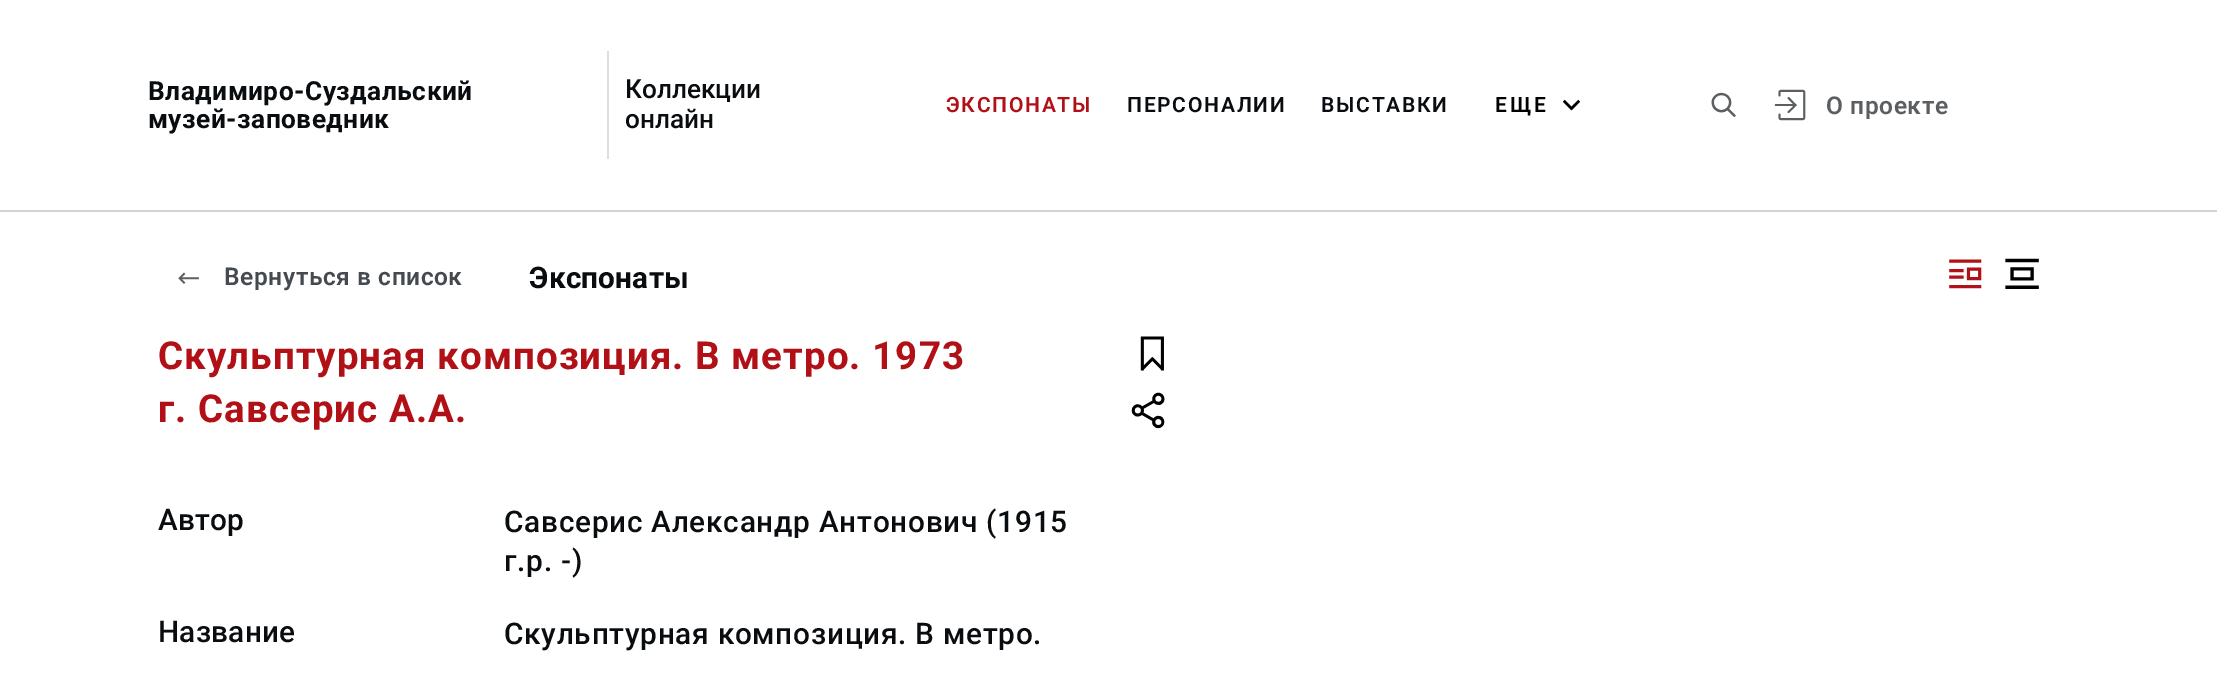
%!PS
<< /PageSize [2217 676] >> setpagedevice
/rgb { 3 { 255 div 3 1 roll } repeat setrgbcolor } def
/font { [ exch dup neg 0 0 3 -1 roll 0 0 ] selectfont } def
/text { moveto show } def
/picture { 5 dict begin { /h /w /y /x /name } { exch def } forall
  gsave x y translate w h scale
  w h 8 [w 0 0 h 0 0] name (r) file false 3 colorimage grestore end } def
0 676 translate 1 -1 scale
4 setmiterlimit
255 255 255 rgb
0 0 2217 676 rectfill
211 211 211 rgb
0 210 2217 2 rectfill
222 222 222 rgb
607 51 2 108 rectfill
(img_01.rgb) 1562 99 19 12 picture
(img_02.rgb) 1711 92 25 26 picture
(img_03.rgb) 1774 89 32 32 picture
(img_04.rgb) 178 272 21 12 picture
(img_05.rgb) 1949 259 33 30 picture
(img_06.rgb) 2005 258 34 31 picture
(img_07.rgb) 1140 336 24 35 picture
(img_08.rgb) 1131 392 34 37 picture
/Roboto-Bold 26.25 font
10 13 16 rgb
148 100 moveto 0.5 0 (Владимиро-Суздальский) ashow
148 128 moveto 0.5 0 (музей-заповедник) ashow
/Roboto-Medium 26.25 font
(Коллекции) 625 98 text
(онлайн) 625 128 text
/Roboto-SemiBold 21 font
177 16 22 rgb
946 112 moveto 1.75 0 (ЭКСПОНАТЫ) ashow
10 13 16 rgb
1127 112 moveto 1.75 0 (ПЕРСОНАЛИИ) ashow
1321 112 moveto 1.75 0 (ВЫСТАВКИ) ashow
0 0 0 rgb
1495 112 moveto 3 0 (ЕЩЕ) ashow
/Roboto-SemiBold 24.5 font
92 95 98 rgb
1826 114 moveto 0.6 0 (О проекте) ashow
68 74 80 rgb
224 285 moveto 0.6 0 (Вернуться в список) ashow
/Roboto-Bold 29.75 font
10 13 16 rgb
529 288 moveto 0.25 0 (Экспонаты) ashow
/Roboto-Bold 38.5 font
177 16 22 rgb
158 369 moveto 1.05 0 (Скульптурная композиция. В метро. 1973) ashow
158 422 moveto 1.05 0 (г. Савсерис А.А.) ashow
/Roboto-Medium 29.75 font
10 13 16 rgb
158 530 moveto 0.25 0 (Автор) ashow
504 532 moveto 0.75 0 (Савсерис Александр Антонович \(1915) ashow
504 571 moveto 0.75 0 (г.р. -\)) ashow
158 642 moveto 0.25 0 (Название) ashow
504 644 moveto 0.75 0 (Скульптурная композиция. В метро.) ashow
showpage
